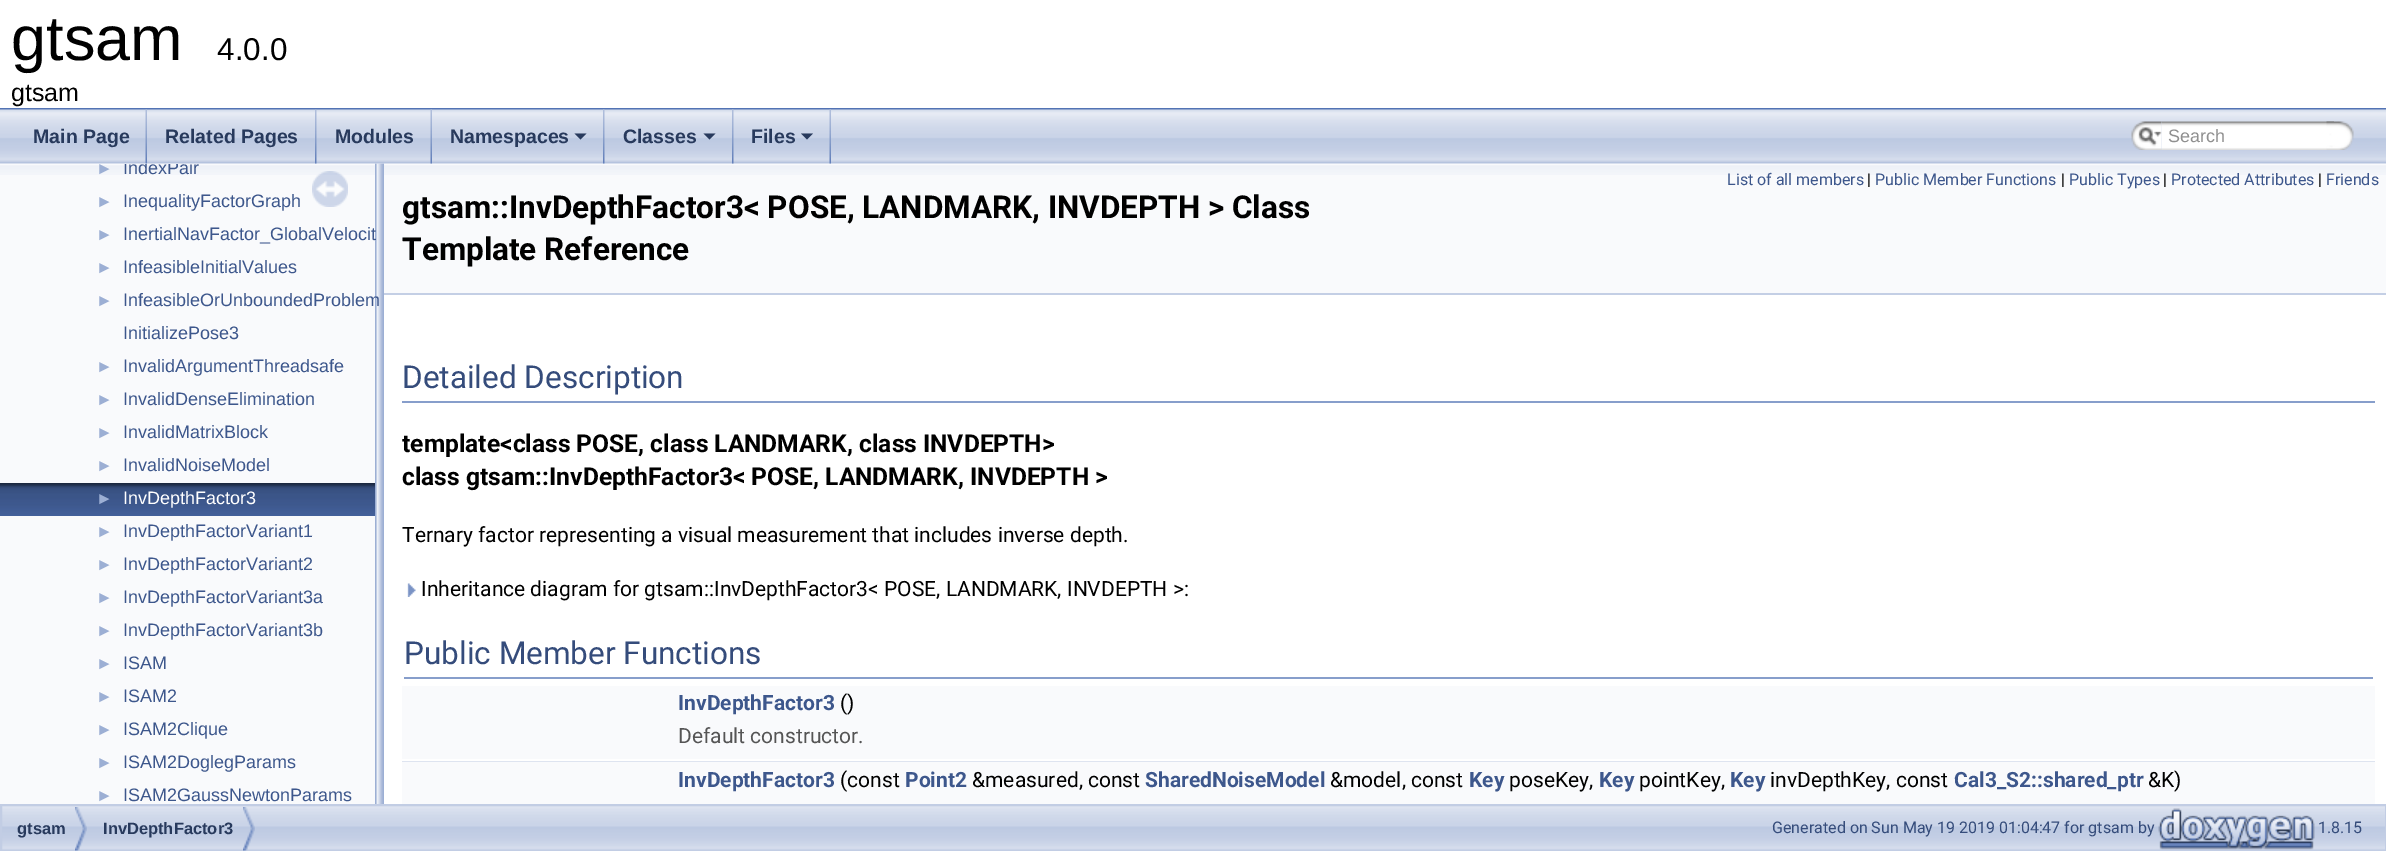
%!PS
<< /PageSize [2386 851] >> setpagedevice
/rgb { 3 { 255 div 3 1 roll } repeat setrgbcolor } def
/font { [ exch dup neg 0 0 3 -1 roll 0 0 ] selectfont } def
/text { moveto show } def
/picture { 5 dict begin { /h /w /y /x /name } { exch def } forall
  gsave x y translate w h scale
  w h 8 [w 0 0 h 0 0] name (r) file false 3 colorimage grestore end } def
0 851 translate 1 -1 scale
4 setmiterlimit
255 255 255 rgb
0 0 2386 851 rectfill
83 115 180 rgb
0 108 2386 2 rectfill
(img_12.rgb) 375 163 9 641 picture
(img_01.rgb) 0 109 2386 55 picture
(img_02.rgb) 145 109 2 55 picture
(img_03.rgb) 315 109 2 55 picture
(img_02.rgb) 430 109 2 55 picture
(img_04.rgb) 603 109 2 55 picture
40 58 93 rgb
574.5 133.5 moveto 12 0 rlineto -6 6 rlineto closepath fill
(img_04.rgb) 732 109 2 55 picture
703.5 133.5 moveto 12 0 rlineto -6 6 rlineto closepath fill
(img_02.rgb) 829 109 2 55 picture
801 133.5 moveto 12 0 rlineto -6 6 rlineto closepath fill
(img_05.rgb) 2131 121 31 29 picture
(img_06.rgb) 2138 127 24 19 picture
(img_07.rgb) 2161 121 173 29 picture
(img_08.rgb) 2326 121 28 29 picture
249 250 252 rgb
0 164 375 640 rectfill
(img_09.rgb) 0 165 375 10 picture
(img_10.rgb) 0 483 375 33 picture
(img_11.rgb) 312 171 36 36 picture
384 164 2002 129 rectfill
(img_13.rgb) 384 165 2002 10 picture
196 207 229 rgb
384 293 2002 2 rectfill
135 158 203 rgb
402 401 1973 2 rectfill
(img_14.rgb) 407 583 9 14 picture
404 677 1969 2 rectfill
249 250 252 rgb
402 686 1973 34 rectfill
402 720 1973 39 rectfill
222 228 240 rgb
402 761 1973 1 rectfill
249 250 252 rgb
402 762 1973 35 rectfill
402 797 1973 7 rectfill
(img_15.rgb) 2 806 2383 44 picture
194 205 228 rgb
2 setlinewidth
1 805 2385 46 rectstroke
(img_16.rgb) 75 807 12 44 picture
(img_16.rgb) 243 807 12 44 picture
(img_17.rgb) 2158 808 157 42 picture
/LiberationSans-Regular 63 font
0 0 0 rgb
(gtsam) 11 60 text
/LiberationSans-Regular 31.5 font
(4.0.0) 217 60 text
/LiberationSans-Regular 25 font
(gtsam) 11 101 text
/LiberationSans-Bold 19.5 font
40 58 93 rgb
(Main Page) 33 143 text
(Related Pages) 165 143 text
(Modules) 335 143 text
(Namespaces) 450 143 text
(Classes) 623 143 text
(Files) 751 143 text
/LiberationSans-Regular 18 font
144 144 144 rgb
(Search) 2168 142 text
/LiberationSans-Regular 17 font
156 175 212 rgb
(►) 96 174 text
gsave
0 164 375 640 rectclip
/LiberationSans-Regular 18 font
61 87 140 rgb
(IndexPair) 123 174 text
grestore
(►) 96 207 text
/LiberationSans-Regular 18 font
61 87 140 rgb
(InequalityFactorGraph) 123 207 text
/LiberationSans-Regular 17 font
156 175 212 rgb
(►) 96 240 text
/LiberationSans-Regular 18 font
61 87 140 rgb
(InertialNavFactor_GlobalVelocit) 123 240 text
/LiberationSans-Regular 17 font
156 175 212 rgb
(►) 96 273 text
/LiberationSans-Regular 18 font
61 87 140 rgb
(InfeasibleInitialValues) 123 273 text
/LiberationSans-Regular 17 font
156 175 212 rgb
(►) 96 306 text
/LiberationSans-Regular 18 font
61 87 140 rgb
(InfeasibleOrUnboundedProblem) 123 306 text
(InitializePose3) 123 339 text
/LiberationSans-Regular 17 font
156 175 212 rgb
(►) 96 372 text
/LiberationSans-Regular 18 font
61 87 140 rgb
(InvalidArgumentThreadsafe) 123 372 text
/LiberationSans-Regular 17 font
156 175 212 rgb
(►) 96 405 text
/LiberationSans-Regular 18 font
61 87 140 rgb
(InvalidDenseElimination) 123 405 text
/LiberationSans-Regular 17 font
156 175 212 rgb
(►) 96 438 text
/LiberationSans-Regular 18 font
61 87 140 rgb
(InvalidMatrixBlock) 123 438 text
/LiberationSans-Regular 17 font
156 175 212 rgb
(►) 96 471 text
/LiberationSans-Regular 18 font
61 87 140 rgb
(InvalidNoiseModel) 123 471 text
/LiberationSans-Regular 17 font
156 175 212 rgb
(►) 96 504 text
/LiberationSans-Regular 18 font
255 255 255 rgb
(InvDepthFactor3) 123 504 text
/LiberationSans-Regular 17 font
156 175 212 rgb
(►) 96 537 text
/LiberationSans-Regular 18 font
61 87 140 rgb
(InvDepthFactorVariant1) 123 537 text
/LiberationSans-Regular 17 font
156 175 212 rgb
(►) 96 570 text
/LiberationSans-Regular 18 font
61 87 140 rgb
(InvDepthFactorVariant2) 123 570 text
/LiberationSans-Regular 17 font
156 175 212 rgb
(►) 96 603 text
/LiberationSans-Regular 18 font
61 87 140 rgb
(InvDepthFactorVariant3a) 123 603 text
/LiberationSans-Regular 17 font
156 175 212 rgb
(►) 96 636 text
/LiberationSans-Regular 18 font
61 87 140 rgb
(InvDepthFactorVariant3b) 123 636 text
/LiberationSans-Regular 17 font
156 175 212 rgb
(►) 96 669 text
/LiberationSans-Regular 18 font
61 87 140 rgb
(ISAM) 123 669 text
/LiberationSans-Regular 17 font
156 175 212 rgb
(►) 96 702 text
/LiberationSans-Regular 18 font
61 87 140 rgb
(ISAM2) 123 702 text
/LiberationSans-Regular 17 font
156 175 212 rgb
(►) 96 735 text
/LiberationSans-Regular 18 font
61 87 140 rgb
(ISAM2Clique) 123 735 text
/LiberationSans-Regular 17 font
156 175 212 rgb
(►) 96 768 text
/LiberationSans-Regular 18 font
61 87 140 rgb
(ISAM2DoglegParams) 123 768 text
/LiberationSans-Regular 17 font
156 175 212 rgb
(►) 96 801 text
/LiberationSans-Regular 18 font
61 87 140 rgb
(ISAM2GaussNewtonParams) 123 801 text
/Roboto-Regular 16 font
(List of all members) 1727 185 text
0 0 0 rgb
(|) 1867 185 text
61 87 140 rgb
(Public Member Functions) 1875 185 text
0 0 0 rgb
(|) 2061 185 text
61 87 140 rgb
(Public Types) 2069 185 text
0 0 0 rgb
(|) 2163 185 text
61 87 140 rgb
(Protected Attributes) 2171 185 text
0 0 0 rgb
(|) 2318 185 text
61 87 140 rgb
(Friends) 2326 185 text
/Roboto-Bold 31.5 font
0 0 0 rgb
(gtsam::InvDepthFactor3< POSE, LANDMARK, INVDEPTH > Class) 402 218 text
(Template Reference) 402 260 text
/Roboto-Regular 31.5 font
53 76 123 rgb
(Detailed Description) 402 388 text
/Roboto-Bold 24.6 font
0 0 0 rgb
(template<class POSE, class LANDMARK, class INVDEPTH>) 402 452 text
(class gtsam::InvDepthFactor3< POSE, LANDMARK, INVDEPTH >) 402 485 text
/Roboto-Regular 21 font
(Ternary factor representing a visual measurement that includes inverse depth.) 402 542 text
(Inheritance diagram for gtsam::InvDepthFactor3< POSE, LANDMARK, INVDEPTH >:) 421 596 text
/Roboto-Regular 31.5 font
53 76 123 rgb
(Public Member Functions) 404 664 text
/Roboto-Bold 21 font
61 87 140 rgb
(InvDepthFactor3) 678 710 text
/Roboto-Regular 21 font
0 0 0 rgb
(\(\)) 840 710 text
85 85 85 rgb
(Default constructor.) 678 743 text
/Roboto-Bold 21 font
61 87 140 rgb
(InvDepthFactor3) 678 787 text
/Roboto-Regular 21 font
0 0 0 rgb
(\(const) 840 787 text
/Roboto-Bold 21 font
61 87 140 rgb
(Point2) 905 787 text
/Roboto-Regular 21 font
0 0 0 rgb
(&measured, const) 972 787 text
/Roboto-Bold 21 font
61 87 140 rgb
(SharedNoiseModel) 1145 787 text
/Roboto-Regular 21 font
0 0 0 rgb
(&model, const) 1330 787 text
/Roboto-Bold 21 font
61 87 140 rgb
(Key) 1469 787 text
/Roboto-Regular 21 font
0 0 0 rgb
(poseKey,) 1509 787 text
/Roboto-Bold 21 font
61 87 140 rgb
(Key) 1599 787 text
/Roboto-Regular 21 font
0 0 0 rgb
(pointKey,) 1639 787 text
/Roboto-Bold 21 font
61 87 140 rgb
(Key) 1730 787 text
/Roboto-Regular 21 font
0 0 0 rgb
(invDepthKey, const) 1770 787 text
/Roboto-Bold 21 font
61 87 140 rgb
(Cal3_S2::shared_ptr) 1954 787 text
/Roboto-Regular 21 font
0 0 0 rgb
(&K\)) 2148 787 text
/LiberationSans-Bold 16.5 font
40 58 93 rgb
(gtsam) 17 834 text
(InvDepthFactor3) 103 834 text
/Roboto-Regular 16 font
53 76 123 rgb
(Generated on Sun May 19 2019 01:04:47 for gtsam by) 1772 833 text
(1.8.15) 2318 833 text
showpage
